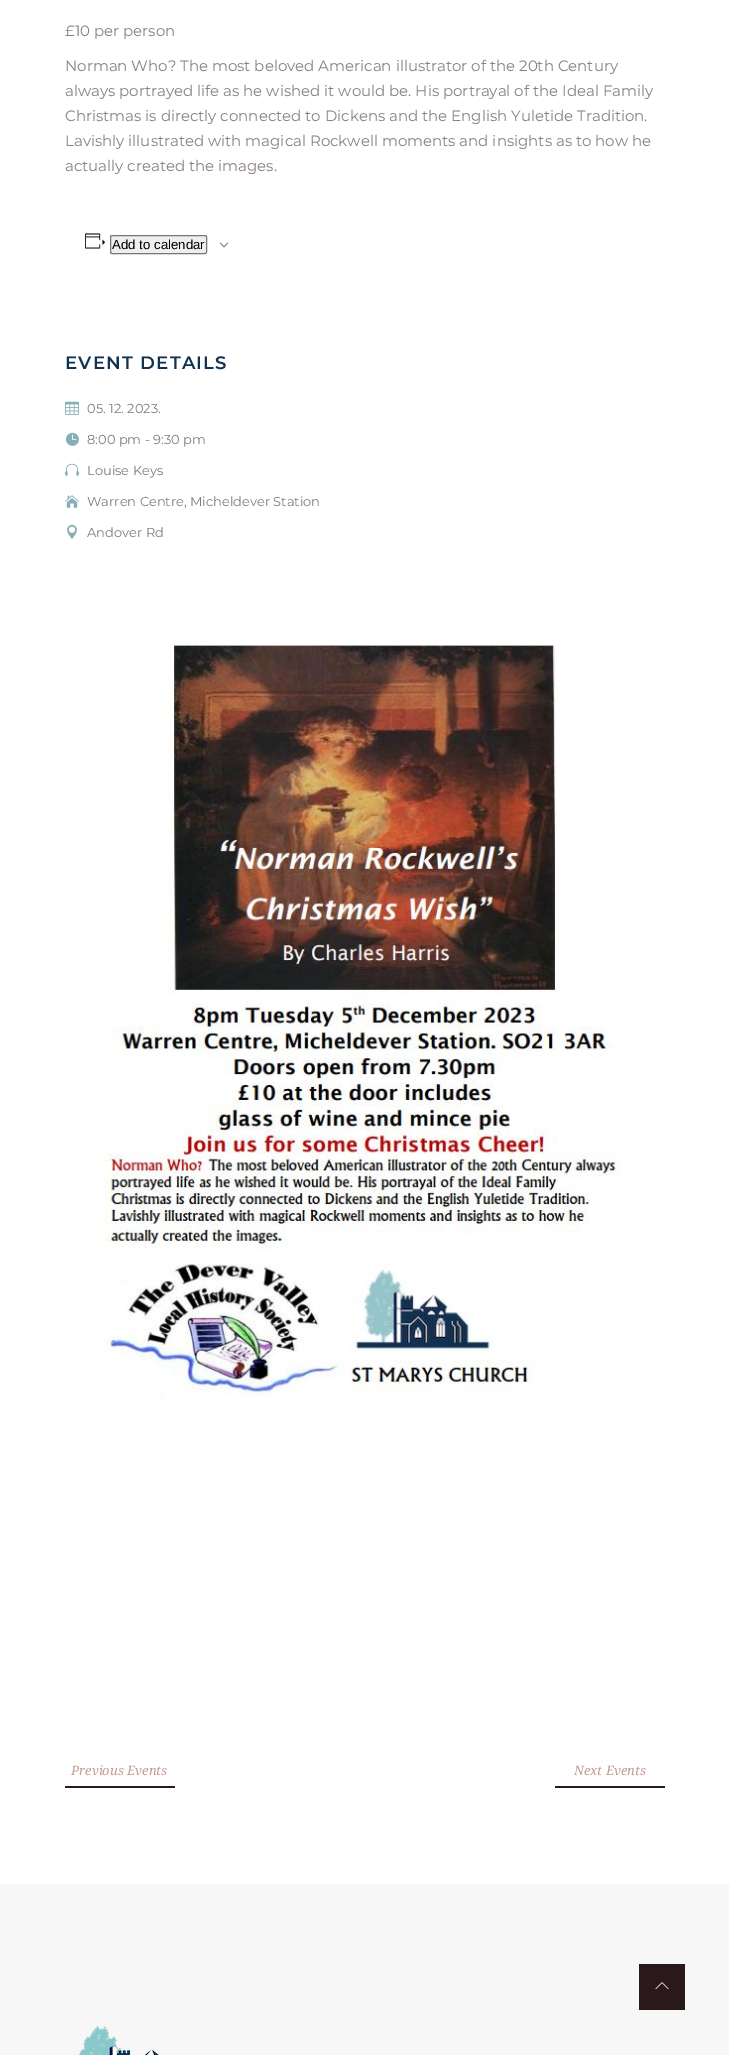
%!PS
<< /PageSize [729 2055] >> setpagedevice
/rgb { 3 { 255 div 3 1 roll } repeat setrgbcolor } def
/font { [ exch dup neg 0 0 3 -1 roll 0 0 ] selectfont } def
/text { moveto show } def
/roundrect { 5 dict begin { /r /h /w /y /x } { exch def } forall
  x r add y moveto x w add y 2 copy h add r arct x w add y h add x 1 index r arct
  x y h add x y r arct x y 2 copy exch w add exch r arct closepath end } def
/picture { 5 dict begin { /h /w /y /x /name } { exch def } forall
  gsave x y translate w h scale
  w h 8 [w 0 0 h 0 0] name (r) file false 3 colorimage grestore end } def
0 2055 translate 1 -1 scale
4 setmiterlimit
255 255 255 rgb
0 0 729 2055 rectfill
(img_01.rgb) 85 233 21 16 picture
239 239 239 rgb
110.5 235.5 96 18 1.5 roundrect gsave fill grestore
118 118 118 rgb
stroke
(img_02.rgb) 219 242 10 6 picture
(img_03.rgb) 65 401 14 14 picture
(img_04.rgb) 65 432 14 14 picture
(img_05.rgb) 65 463 14 13 picture
(img_06.rgb) 65 495 14 13 picture
(img_07.rgb) 67 524 10 15 picture
(img_08.rgb) 97 645 523 752 picture
41 25 26 rgb
65 1786 110 2 rectfill
555 1786 110 2 rectfill
247 247 247 rgb
0 1884 729 171 rectfill
(img_09.rgb) 78 2026 81 29 picture
41 25 26 rgb
639 1964 46 46 rectfill
(img_10.rgb) 655 1982 14 8 picture
/Montserrat-Regular 15 font
138 128 128 rgb
(£10 per person) 65 36 text
(Norman Who? The most beloved American illustrator of the 20th Century) 65 71 text
(always portrayed life as he wished it would be. His portrayal of the Ideal Family) 65 96 text
(Christmas is directly connected to Dickens and the English Yuletide Tradition.) 65 121 text
(Lavishly illustrated with magical Rockwell moments and insights as to how he) 65 146 text
(actually created the images.) 65 171 text
/LiberationSans-Regular 13.25 font
0 0 0 rgb
(Add to calendar) 112 249 text
/Montserrat-SemiBold 18 font
17 50 80 rgb
65 369 moveto 1.25 0 (EVENT DETAILS) ashow
/Montserrat-Regular 13 font
132 122 122 rgb
(05. 12. 2023.) 87 413 text
(8:00 pm - 9:30 pm) 87 444 text
(Louise Keys) 87 475 text
(Warren Centre, Micheldever Station) 87 506 text
(Andover Rd) 87 537 text
/NotoSerif-Italic 13 font
197 154 142 rgb
(Previous Events) 71 1775 text
(Next Events) 574 1775 text
showpage
